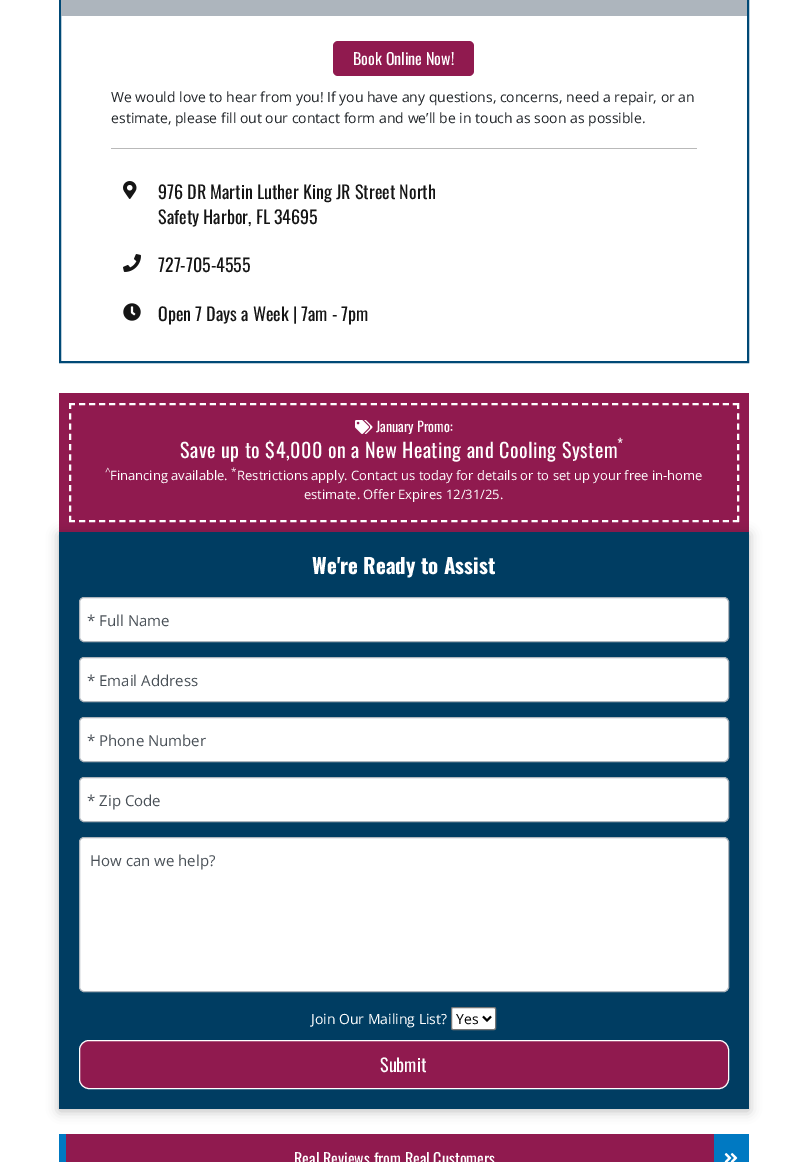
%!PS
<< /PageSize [807 1162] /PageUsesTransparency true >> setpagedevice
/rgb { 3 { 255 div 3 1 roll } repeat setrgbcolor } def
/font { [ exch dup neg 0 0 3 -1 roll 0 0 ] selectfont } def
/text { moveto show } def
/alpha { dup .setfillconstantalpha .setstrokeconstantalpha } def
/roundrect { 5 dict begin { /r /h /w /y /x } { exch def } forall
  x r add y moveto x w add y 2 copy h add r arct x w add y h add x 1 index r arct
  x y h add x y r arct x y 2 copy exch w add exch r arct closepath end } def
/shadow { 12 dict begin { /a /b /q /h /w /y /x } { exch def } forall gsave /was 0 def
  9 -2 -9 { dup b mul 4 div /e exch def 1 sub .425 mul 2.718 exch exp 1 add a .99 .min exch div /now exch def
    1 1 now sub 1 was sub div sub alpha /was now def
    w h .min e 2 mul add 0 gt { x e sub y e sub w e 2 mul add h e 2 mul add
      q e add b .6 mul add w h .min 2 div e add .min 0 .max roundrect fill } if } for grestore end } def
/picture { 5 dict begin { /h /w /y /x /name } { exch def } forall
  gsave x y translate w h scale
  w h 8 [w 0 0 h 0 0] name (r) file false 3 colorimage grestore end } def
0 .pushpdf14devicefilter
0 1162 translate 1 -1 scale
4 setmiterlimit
255 255 255 rgb
0 0 807 1162 rectfill
0 73 118 rgb
2 setlinewidth
60 -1 688 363 rectstroke
173 181 189 rgb
61 0 686 16 rectfill
144 26 79 rgb
333 41 141 35 5 roundrect fill
185 185 185 rgb
111 148 586 1 rectfill
(img_01.rgb) 123 181 14 18 picture
(img_02.rgb) 123 254 18 18 picture
(img_03.rgb) 123 303 18 18 picture
144 26 79 rgb
59 393 690 139 rectfill
255 255 255 rgb
[6 4.06] 0 setdash
69 404 moveto 670 0 rlineto stroke
[6 4.27] 0 setdash
738 403 moveto 0 119 rlineto stroke
[6 4.06] 0 setdash
69 521 moveto 670 0 rlineto stroke
[6 4.27] 0 setdash
70 403 moveto 0 119 rlineto stroke
(img_04.rgb) 355 420 18 14 picture
0 61 98 rgb
59 532 690 577 rectfill
gsave
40 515 moveto 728 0 rlineto 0 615 rlineto -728 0 rlineto closepath 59 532 moveto 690 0 rlineto 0 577 rlineto -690 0 rlineto closepath eoclip newpath
30 30 30 rgb
59 534 690 577 0 6 0.3 shadow
grestore
255 255 255 rgb
79.5 597.5 649 44 4.5 roundrect gsave fill grestore
173 181 189 rgb
1 setlinewidth
[] 0 setdash
stroke
255 255 255 rgb
79.5 657.5 649 44 4.5 roundrect gsave fill grestore
173 181 189 rgb
stroke
255 255 255 rgb
79.5 717.5 649 44 4.5 roundrect gsave fill grestore
173 181 189 rgb
stroke
255 255 255 rgb
79.5 777.5 649 44 4.5 roundrect gsave fill grestore
173 181 189 rgb
stroke
255 255 255 rgb
79.5 837.5 649 154 4.5 roundrect gsave fill grestore
173 181 189 rgb
stroke
255 255 255 rgb
451.5 1007.5 44 22 1.5 roundrect gsave fill grestore
118 118 118 rgb
stroke
0 0 0 rgb
2 setlinewidth
483 1016.5 moveto 4 4 rlineto 4 -4 rlineto stroke
144 26 79 rgb
79.5 1040.5 649 48 9.5 roundrect gsave fill grestore
255 255 255 rgb
1 setlinewidth
stroke
144 26 79 rgb
66 1134 648 28 rectfill
0 121 194 rgb
59 1134 7 28 rectfill
714 1134 35 28 rectfill
(img_05.rgb) 724 1153 14 9 picture
/Oswald-Regular 16 font
255 255 255 rgb
(Book Online Now!) 353 65 text
/OpenSans-Regular 14 font
33 37 41 rgb
(We would love to hear from you! If you have any questions, concerns, need a repair, or an) 111 102 text
(estimate, please fill out our contact form and we’ll be in touch as soon as possible.) 111 123 text
/Oswald-Regular 18 font
21 21 21 rgb
(976 DR Martin Luther King JR Street North) 158 199 text
(Safety Harbor, FL 34695) 158 224 text
(727-705-4555) 158 272 text
(Open 7 Days a Week | 7am - 7pm) 158 321 text
/Oswald-Regular 14 font
255 255 255 rgb
(January Promo:) 376 432 text
/Oswald-Regular 20 font
180 458 moveto 0.5 0 (Save up to $4,000 on a New Heating and Cooling System) ashow
/Oswald-Regular 15 font
617 450 moveto 0.5 0 (*) ashow
/OpenSans-Regular 10 font
(^) 105 475 text
/OpenSans-Regular 13 font
(Financing available.) 110 480 text
/OpenSans-Regular 10 font
(*) 231 475 text
/OpenSans-Regular 13 font
(Restrictions apply. Contact us today for details or to set up your free in-home) 237 480 text
(estimate. Offer Expires 12/31/25.) 304 499 text
/Oswald-Bold 21 font
(We're Ready to Assist) 312 574 text
/OpenSans-Regular 15 font
73 80 87 rgb
(* Full Name) 87 626 text
(* Email Address) 87 686 text
(* Phone Number) 87 746 text
(* Zip Code) 87 806 text
(How can we help?) 90 866 text
/OpenSans-Regular 14 font
255 255 255 rgb
(Join Our Mailing List?) 311 1024 text
0 0 0 rgb
(Yes) 456 1024 text
/Oswald-Regular 18 font
255 255 255 rgb
(Submit) 380 1072 text
/Oswald-Regular 16 font
(Real Reviews from Real Customers) 294 1165 text
.poppdf14devicefilter showpage
